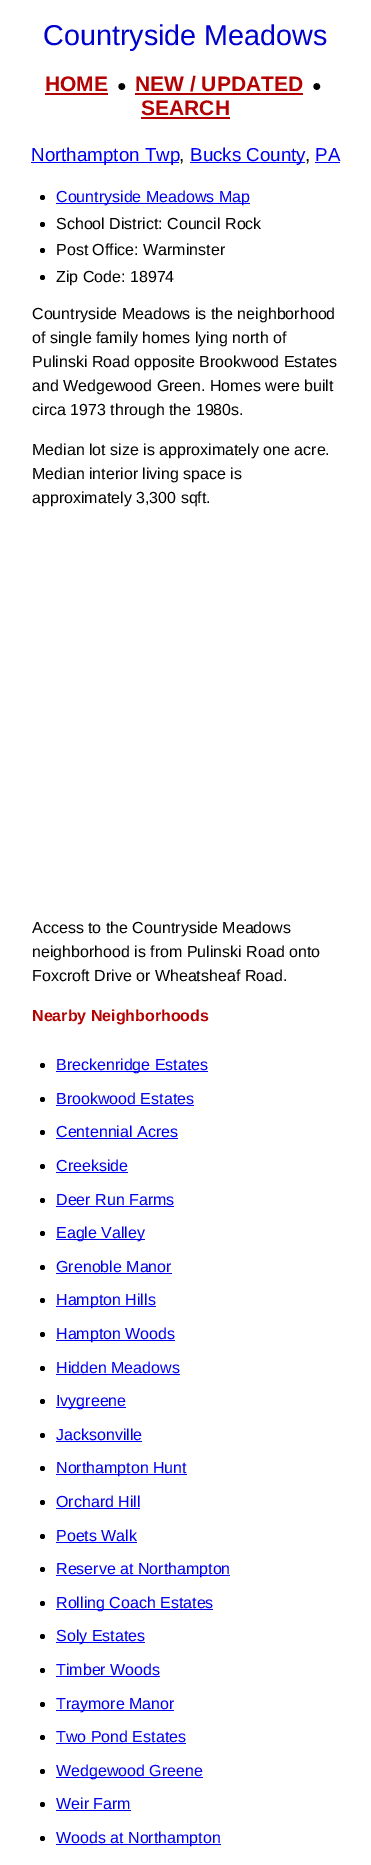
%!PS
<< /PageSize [371 1865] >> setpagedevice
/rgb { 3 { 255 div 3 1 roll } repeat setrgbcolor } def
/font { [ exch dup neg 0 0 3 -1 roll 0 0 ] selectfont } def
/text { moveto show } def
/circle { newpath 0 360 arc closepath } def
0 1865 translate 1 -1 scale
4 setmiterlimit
255 255 255 rgb
0 0 371 1865 rectfill
180 1 1 rgb
45 93 63 2 rectfill
135 93 168 2 rectfill
141 117 89 2 rectfill
0 0 238 rgb
31 162 148 1 rectfill
190 162 115 1 rectfill
315 162 25 1 rectfill
0 0 0 rgb
42.5 197.5 2.5 circle fill
0 0 238 rgb
56 203 194 1 rectfill
0 0 0 rgb
42.5 224.5 2.5 circle fill
42.5 250.5 2.5 circle fill
42.5 277.5 2.5 circle fill
42.5 1065.5 2.5 circle fill
0 0 238 rgb
56 1071 152 1 rectfill
0 0 0 rgb
42.5 1099.5 2.5 circle fill
0 0 238 rgb
56 1105 138 1 rectfill
0 0 0 rgb
42.5 1132.5 2.5 circle fill
0 0 238 rgb
56 1138 122 1 rectfill
0 0 0 rgb
42.5 1166.5 2.5 circle fill
0 0 238 rgb
56 1172 72 1 rectfill
0 0 0 rgb
42.5 1200.5 2.5 circle fill
0 0 238 rgb
56 1206 118 1 rectfill
0 0 0 rgb
42.5 1233.5 2.5 circle fill
0 0 238 rgb
56 1239 89 1 rectfill
0 0 0 rgb
42.5 1267.5 2.5 circle fill
0 0 238 rgb
56 1273 116 1 rectfill
0 0 0 rgb
42.5 1300.5 2.5 circle fill
0 0 238 rgb
56 1306 100 1 rectfill
0 0 0 rgb
42.5 1334.5 2.5 circle fill
0 0 238 rgb
56 1340 119 1 rectfill
0 0 0 rgb
42.5 1368.5 2.5 circle fill
0 0 238 rgb
56 1374 124 1 rectfill
0 0 0 rgb
42.5 1401.5 2.5 circle fill
0 0 238 rgb
56 1407 70 1 rectfill
0 0 0 rgb
42.5 1435.5 2.5 circle fill
0 0 238 rgb
56 1441 86 1 rectfill
0 0 0 rgb
42.5 1468.5 2.5 circle fill
0 0 238 rgb
56 1474 131 1 rectfill
0 0 0 rgb
42.5 1502.5 2.5 circle fill
0 0 238 rgb
56 1508 84 1 rectfill
0 0 0 rgb
42.5 1536.5 2.5 circle fill
0 0 238 rgb
56 1542 81 1 rectfill
0 0 0 rgb
42.5 1569.5 2.5 circle fill
0 0 238 rgb
56 1575 174 1 rectfill
0 0 0 rgb
42.5 1603.5 2.5 circle fill
0 0 238 rgb
56 1609 157 1 rectfill
0 0 0 rgb
42.5 1636.5 2.5 circle fill
0 0 238 rgb
56 1642 89 1 rectfill
0 0 0 rgb
42.5 1670.5 2.5 circle fill
0 0 238 rgb
56 1676 104 1 rectfill
0 0 0 rgb
42.5 1704.5 2.5 circle fill
0 0 238 rgb
56 1710 118 1 rectfill
0 0 0 rgb
42.5 1737.5 2.5 circle fill
0 0 238 rgb
56 1743 130 1 rectfill
0 0 0 rgb
42.5 1771.5 2.5 circle fill
0 0 238 rgb
56 1777 147 1 rectfill
0 0 0 rgb
42.5 1804.5 2.5 circle fill
0 0 238 rgb
56 1810 75 1 rectfill
0 0 0 rgb
42.5 1838.5 2.5 circle fill
0 0 238 rgb
56 1844 165 1 rectfill
/LiberationSans-Regular 28.75 font
0 0 204 rgb
(Countryside Meadows) 43 45 text
/LiberationSans-Bold 21 font
180 1 1 rgb
(HOME) 45 91 text
/LiberationSans-Regular 16 font
0 0 0 rgb
(●) 117 91 text
/LiberationSans-Bold 21 font
180 1 1 rgb
(NEW / UPDATED) 135 91 text
/LiberationSans-Regular 16 font
0 0 0 rgb
(●) 312 91 text
/LiberationSans-Bold 21 font
180 1 1 rgb
(SEARCH) 141 115 text
/LiberationSans-Regular 18.75 font
0 0 238 rgb
(Northampton Twp) 31 161 text
(Bucks County) 190 161 text
(PA) 315 161 text
0 0 0 rgb
(,) 179 161 text
(,) 305 161 text
/LiberationSans-Regular 16 font
0 0 238 rgb
(Countryside Meadows Map) 56 202 text
0 0 0 rgb
(School District: Council Rock) 56 229 text
(Post Office: Warminster) 56 255 text
(Zip Code: 18974) 56 282 text
(Countryside Meadows is the neighborhood) 32 319 text
(of single family homes lying north of) 32 343 text
(Pulinski Road opposite Brookwood Estates) 32 367 text
(and Wedgewood Green. Homes were built) 32 391 text
(circa 1973 through the 1980s.) 32 415 text
(Median lot size is approximately one acre.) 32 455 text
(Median interior living space is) 32 479 text
(approximately 3,300 sqft.) 32 503 text
(Access to the Countryside Meadows) 32 933 text
(neighborhood is from Pulinski Road onto) 32 957 text
(Foxcroft Drive or Wheatsheaf Road.) 32 981 text
/LiberationSans-Bold 16 font
180 1 1 rgb
(Nearby Neighborhoods) 32 1021 text
/LiberationSans-Regular 16 font
0 0 238 rgb
(Breckenridge Estates) 56 1070 text
(Brookwood Estates) 56 1104 text
(Centennial Acres) 56 1137 text
(Creekside) 56 1171 text
(Deer Run Farms) 56 1205 text
(Eagle Valley) 56 1238 text
(Grenoble Manor) 56 1272 text
(Hampton Hills) 56 1305 text
(Hampton Woods) 56 1339 text
(Hidden Meadows) 56 1373 text
(Ivygreene) 56 1406 text
(Jacksonville) 56 1440 text
(Northampton Hunt) 56 1473 text
(Orchard Hill) 56 1507 text
(Poets Walk) 56 1541 text
(Reserve at Northampton) 56 1574 text
(Rolling Coach Estates) 56 1608 text
(Soly Estates) 56 1641 text
(Timber Woods) 56 1675 text
(Traymore Manor) 56 1709 text
(Two Pond Estates) 56 1742 text
(Wedgewood Greene) 56 1776 text
(Weir Farm) 56 1809 text
(Woods at Northampton) 56 1843 text
showpage
